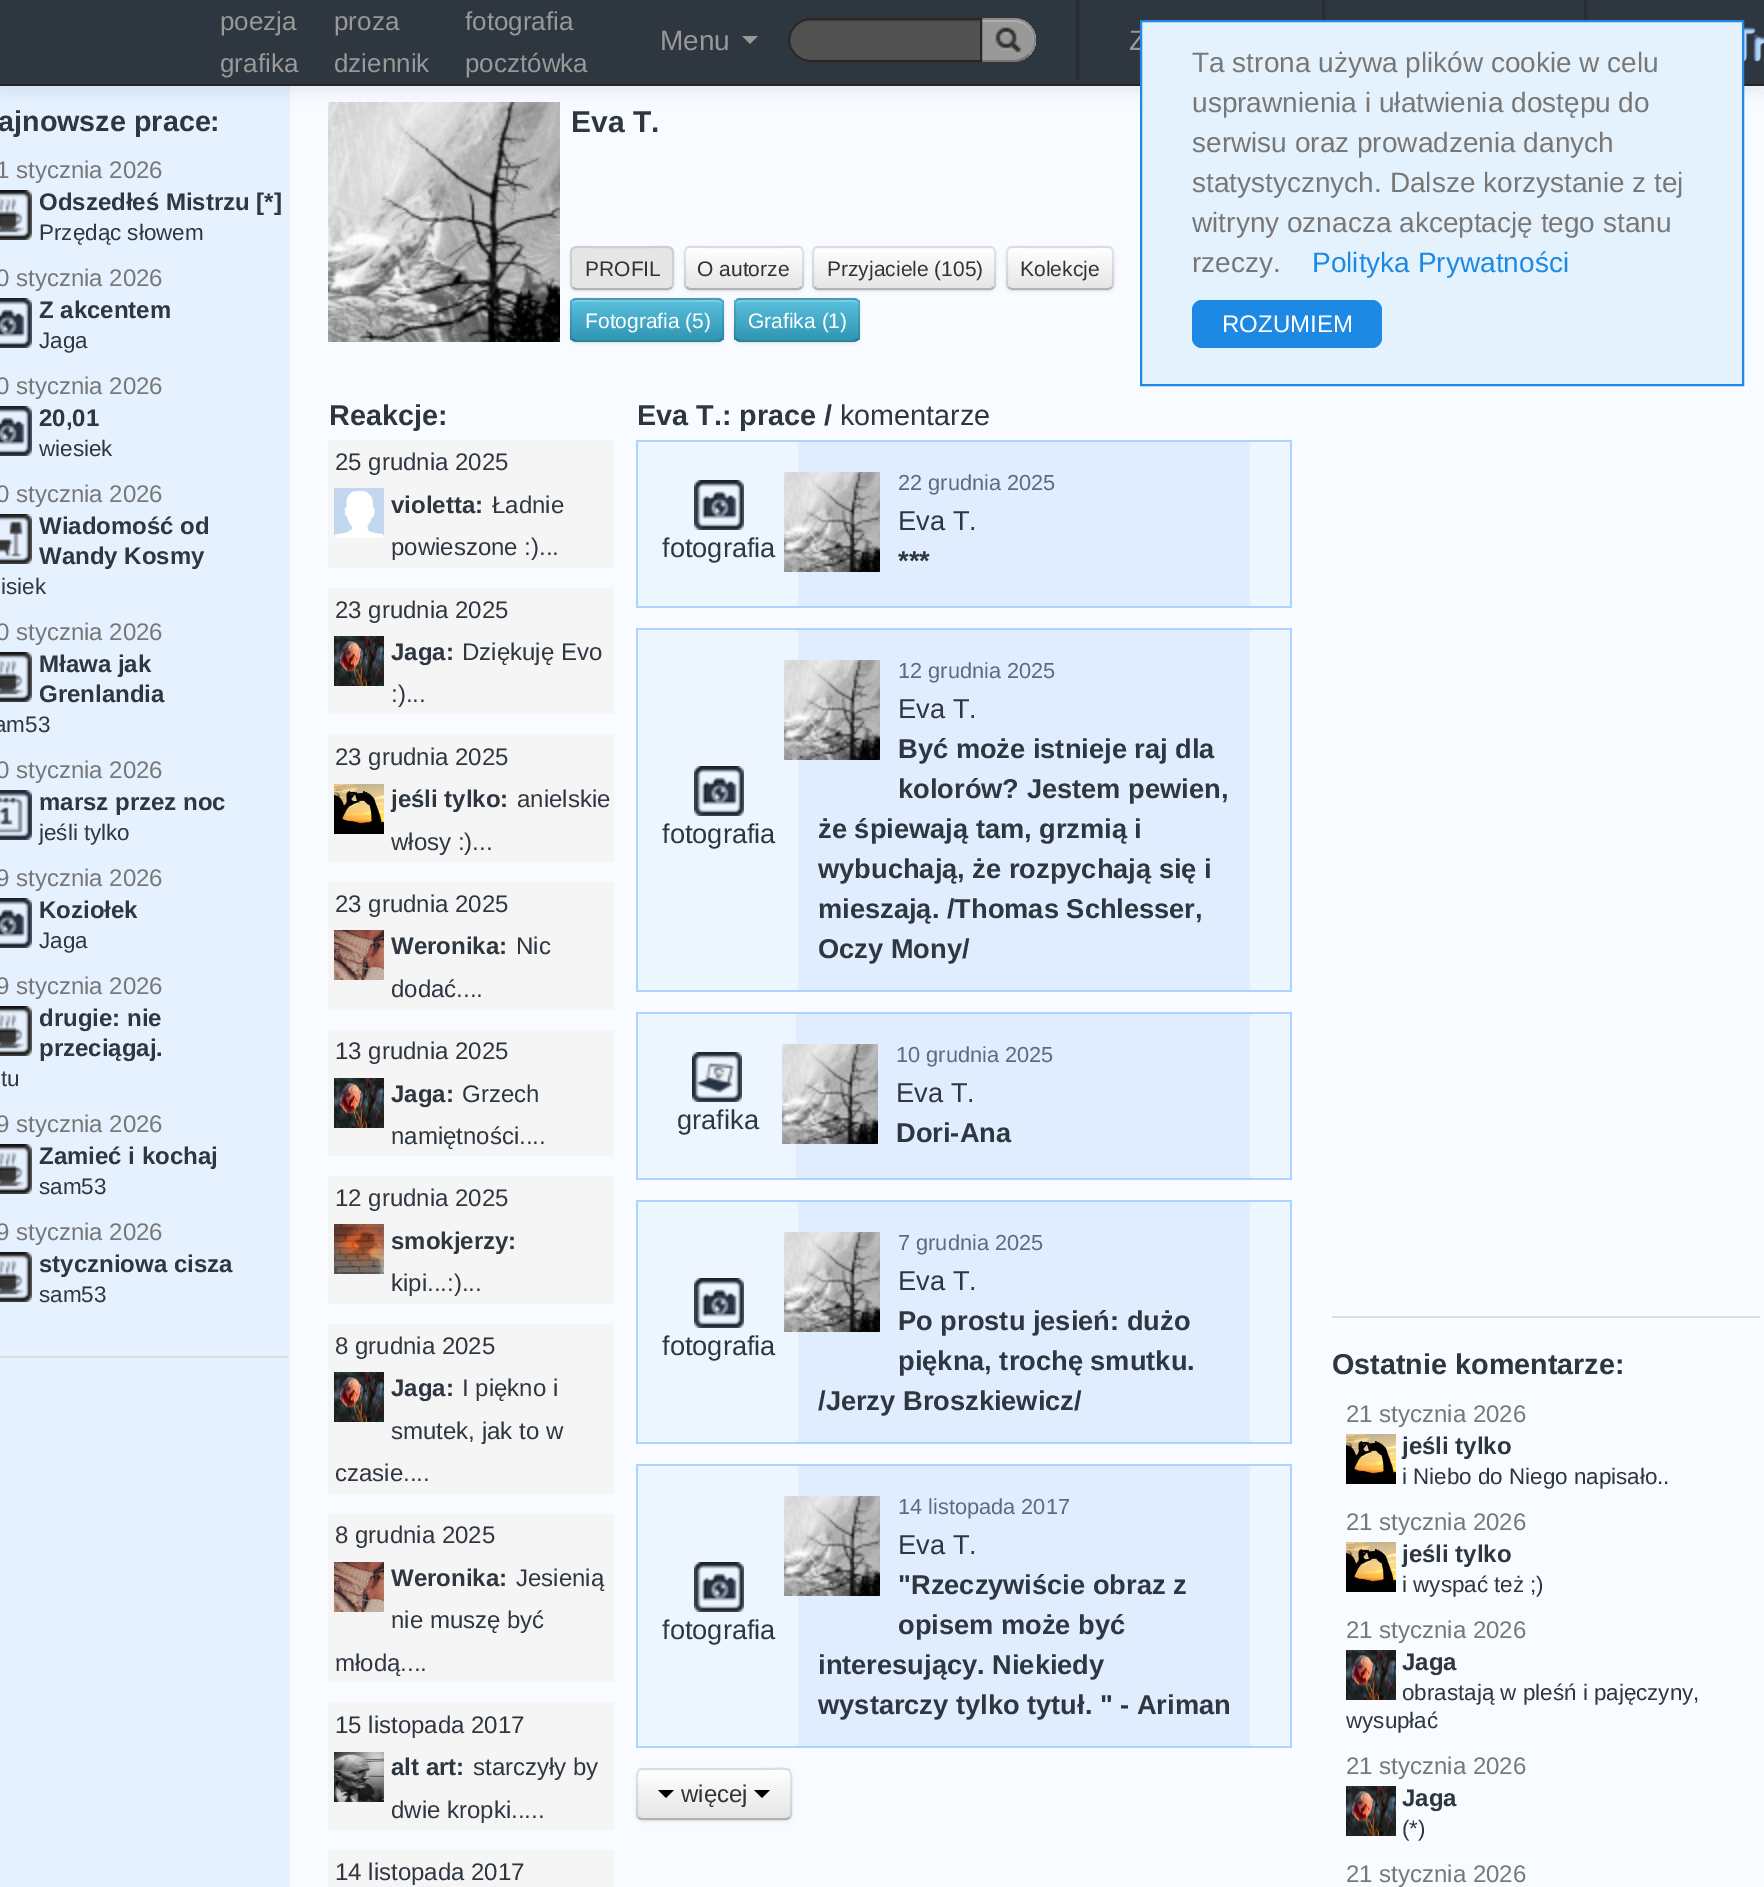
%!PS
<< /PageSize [1764 1887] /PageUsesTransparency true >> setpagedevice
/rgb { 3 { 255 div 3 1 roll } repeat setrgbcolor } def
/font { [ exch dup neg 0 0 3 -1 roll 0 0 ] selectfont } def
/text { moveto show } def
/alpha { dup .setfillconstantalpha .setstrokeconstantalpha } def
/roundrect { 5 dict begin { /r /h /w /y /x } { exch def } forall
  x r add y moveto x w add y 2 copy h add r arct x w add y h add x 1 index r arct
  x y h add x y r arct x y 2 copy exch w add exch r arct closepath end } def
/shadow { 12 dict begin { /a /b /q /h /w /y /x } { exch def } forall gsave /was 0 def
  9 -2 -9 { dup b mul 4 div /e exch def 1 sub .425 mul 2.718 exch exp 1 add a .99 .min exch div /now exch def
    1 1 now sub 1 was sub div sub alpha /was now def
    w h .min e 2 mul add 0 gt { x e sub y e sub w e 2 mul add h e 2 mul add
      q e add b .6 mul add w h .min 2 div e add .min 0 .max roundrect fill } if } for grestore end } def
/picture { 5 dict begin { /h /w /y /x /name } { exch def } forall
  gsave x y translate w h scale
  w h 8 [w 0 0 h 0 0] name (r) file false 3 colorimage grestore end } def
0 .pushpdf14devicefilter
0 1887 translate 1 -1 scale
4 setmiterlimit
248 251 255 rgb
0 0 1764 1887 rectfill
230 241 255 rgb
0 86 290 1801 rectfill
(img_07.rgb) 328 102 232 240 picture
0 0 0 rgb
0 2 1764 86 0 10 0.1 shadow
46 54 64 rgb
0 0 1764 84 rectfill
37 37 37 rgb
0 84 1764 2 rectfill
153 153 153 rgb
742 36 moveto 16 0 rlineto -8 8 rlineto closepath fill
980 18 moveto 34 0 rlineto 12 0 22 10 22 22 rcurveto 0 12 -10 22 -22 22 rcurveto -34 0 rlineto closepath fill
gsave
980 18 moveto 34 0 rlineto 12 0 22 10 22 22 rcurveto 0 12 -10 22 -22 22 rcurveto -34 0 rlineto closepath clip newpath
982 20 54 40 rectfill
grestore
173 173 173 rgb
982 22 moveto 32 0 rlineto 11 0 19 8 20 19 rcurveto 0 -10 -6 -19 -16 -21 rcurveto -36 0 rlineto closepath fill
0.1 alpha
0 0 0 rgb
980 18 moveto 2 2 rlineto 32 0 rlineto 6 0 10 2 14 6 rcurveto 2 -2 rlineto -4 -4 -10 -6 -16 -6 rcurveto closepath fill
1029.5 24.5 moveto 8.5 8.5 8.5 22.5 0 31 rcurveto -1.5 -1.5 rlineto 8 -7.5 8 -20.5 0 -28 rcurveto closepath fill
0.25 alpha
1014 62 moveto 6 0 12 -2 16 -6 rcurveto -2 -2 rlineto -4 4 -8 6 -14 6 rcurveto -32 0 rlineto -2 2 rlineto closepath fill
1 alpha
81 81 81 rgb
810 18 moveto 172 0 rlineto 0 44 rlineto -172 0 rlineto -12 0 -22 -10 -22 -22 rcurveto 0 -12 10 -22 22 -22 rcurveto closepath fill
75 75 75 rgb
810 22 moveto 170 0 rlineto 0 -2 rlineto -170 0 rlineto -11 0 -20 9 -20 20 rcurveto 0 1 rlineto 1 -11 9 -19 20 -19 rcurveto closepath fill
39 39 39 rgb
2 setlinewidth
810 19 moveto 171 0 rlineto 0 42 rlineto -171 0 rlineto -11.5 0 -21 -9.5 -21 -21 rcurveto 0 -11.5 9.5 -21 21 -21 rcurveto closepath stroke
(img_01.rgb) 995 27 27 27 picture
42 48 57 rgb
1078 0 2 80 rectfill
38 44 52 rgb
1076 0 2 80 rectfill
42 48 57 rgb
1324 0 2 20 rectfill
38 44 52 rgb
1322 0 2 20 rectfill
42 48 57 rgb
1586 0 2 20 rectfill
38 44 52 rgb
1584 0 2 20 rectfill
(img_02.rgb) 1744 26 20 36 picture
(img_03.rgb) 0 190 32 50 picture
(img_04.rgb) 0 298 32 50 picture
(img_04.rgb) 0 406 32 50 picture
(img_05.rgb) 0 514 32 50 picture
(img_03.rgb) 0 652 32 50 picture
(img_06.rgb) 0 790 32 50 picture
(img_04.rgb) 0 898 32 50 picture
(img_03.rgb) 0 1006 32 50 picture
(img_03.rgb) 0 1144 32 50 picture
(img_03.rgb) 0 1252 32 50 picture
221 221 221 rgb
0 1356 288 2 rectfill
0 0 0 rgb
570 248 104 44 6 2 0.05 shadow
230 230 230 rgb
570 246 104 44 6 roundrect fill
179 179 179 rgb
671.5 287.5 moveto -3 1.5 rlineto -93 0 rlineto -3 -1.5 rlineto stroke
0.1 alpha
0 0 0 rgb
572.5 287.5 moveto -2.5 -2 -1.5 -6 -1.5 -9 rcurveto 0 -10.5 rlineto 0 -23.5 -3.5 -21 20.5 -21 rcurveto 61 0 rlineto 24 0 20.5 -2.5 20.5 21 rcurveto 0 10.5 rlineto 0 3 1 7 -1.5 9 rcurveto stroke
1 alpha
684 248 120 44 6 2 0.05 shadow
245 245 245 rgb
684 246 120 44 6 roundrect fill
gsave
684 246 120 44 6 roundrect clip newpath
gsave 684 248 moveto 120 0 rlineto 0 40 rlineto -120 0 rlineto closepath clip newpath
<< /ShadingType 2 /ColorSpace /DeviceRGB /Coords [744 248 744 288] /Extend [true true] /Function << /FunctionType 2 /Domain [0 1] /C0 [1 1 1] /C1 [0.902 0.902 0.902] /N 1 >> >> shfill grestore
grestore
179 179 179 rgb
801.5 287.5 moveto -3 1.5 rlineto -109 0 rlineto -3 -1.5 rlineto stroke
0.1 alpha
0 0 0 rgb
686.5 287.5 moveto -2.5 -2 -1.5 -6 -1.5 -9 rcurveto 0 -10.5 rlineto 0 -25 -3.5 -21 23 -21 rcurveto 72 0 rlineto 26.5 0 23 -4 23 21 rcurveto 0 10.5 rlineto 0 3 1 7 -1.5 9 rcurveto stroke
1 alpha
812 248 184 44 6 2 0.05 shadow
245 245 245 rgb
812 246 184 44 6 roundrect fill
gsave
812 246 184 44 6 roundrect clip newpath
gsave 812 248 moveto 184 0 rlineto 0 40 rlineto -184 0 rlineto closepath clip newpath
<< /ShadingType 2 /ColorSpace /DeviceRGB /Coords [904 248 904 288] /Extend [true true] /Function << /FunctionType 2 /Domain [0 1] /C0 [1 1 1] /C1 [0.902 0.902 0.902] /N 1 >> >> shfill grestore
grestore
179 179 179 rgb
993.5 287.5 moveto -1 1 -2 1.5 -3.5 1.5 rcurveto -172 0 rlineto -1.5 0 -2.5 -0.5 -3.5 -1.5 rcurveto stroke
0.1 alpha
0 0 0 rgb
814.5 287.5 moveto -1 -1 -1.5 -2 -1.5 -3.5 rcurveto 0 -32 rlineto 0 -1.5 0.5 -2.5 1.5 -3.5 rcurveto 1 -1 2 -1.5 3.5 -1.5 rcurveto 172 0 rlineto 1.5 0 2.5 0.5 3.5 1.5 rcurveto 1 1 1.5 2 1.5 3.5 rcurveto 0 32 rlineto 0 1.5 -0.5 2.5 -1.5 3.5 rcurveto stroke
1 alpha
1006 248 108 44 6 2 0.05 shadow
245 245 245 rgb
1006 246 108 44 6 roundrect fill
gsave
1006 246 108 44 6 roundrect clip newpath
gsave 1006 248 moveto 108 0 rlineto 0 40 rlineto -108 0 rlineto closepath clip newpath
<< /ShadingType 2 /ColorSpace /DeviceRGB /Coords [1060 248 1060 288] /Extend [true true] /Function << /FunctionType 2 /Domain [0 1] /C0 [1 1 1] /C1 [0.902 0.902 0.902] /N 1 >> >> shfill grestore
grestore
179 179 179 rgb
1111.5 287.5 moveto -3 1.5 rlineto -97 0 rlineto -3 -1.5 rlineto stroke
0.1 alpha
0 0 0 rgb
1008.5 287.5 moveto -2.5 -2 -1.5 -6 -1.5 -9 rcurveto 0 -10.5 rlineto 0 -24 -3.5 -21 21 -21 rcurveto 64 0 rlineto 24.5 0 21 -3 21 21 rcurveto 0 10.5 rlineto 0 3 1 7 -1.5 9 rcurveto stroke
1 alpha
570 300 154 44 6 2 0.05 shadow
73 175 205 rgb
570 298 154 44 6 roundrect fill
gsave
570 298 154 44 6 roundrect clip newpath
gsave 570 300 moveto 154 0 rlineto 0 40 rlineto -154 0 rlineto closepath clip newpath
<< /ShadingType 2 /ColorSpace /DeviceRGB /Coords [647 300 647 340] /Extend [true true] /Function << /FunctionType 2 /Domain [0 1] /C0 [0.357 0.753 0.871] /C1 [0.184 0.588 0.706] /N 1 >> >> shfill grestore
grestore
0.2 alpha
255 255 255 rgb
576 302 moveto 142 0 rlineto 2 0 4 2 4 4 rcurveto 0 -2 rlineto 0 -2 -2 -4 -4 -4 rcurveto -142 0 rlineto -2 0 -4 2 -4 4 rcurveto 0 2 rlineto 0 -2 2 -4 4 -4 rcurveto closepath fill
0.25 alpha
0 0 0 rgb
721.5 339.5 moveto -1 1 -2 1.5 -3.5 1.5 rcurveto -142 0 rlineto -1.5 0 -2.5 -0.5 -3.5 -1.5 rcurveto stroke
0.1 alpha
572.5 339.5 moveto -3 -3 -1.5 -11 -1.5 -14 rcurveto 0 -32 -5 -26.5 28.5 -26.5 rcurveto 95 0 rlineto 33.5 0 28.5 -5.5 28.5 26.5 rcurveto 0 3 1.5 11 -1.5 14 rcurveto stroke
1 alpha
734 300 126 44 6 2 0.05 shadow
73 175 205 rgb
734 298 126 44 6 roundrect fill
gsave
734 298 126 44 6 roundrect clip newpath
gsave 734 300 moveto 126 0 rlineto 0 40 rlineto -126 0 rlineto closepath clip newpath
<< /ShadingType 2 /ColorSpace /DeviceRGB /Coords [797 300 797 340] /Extend [true true] /Function << /FunctionType 2 /Domain [0 1] /C0 [0.357 0.753 0.871] /C1 [0.184 0.588 0.706] /N 1 >> >> shfill grestore
grestore
0.2 alpha
255 255 255 rgb
740 302 moveto 114 0 rlineto 2 0 4 2 4 4 rcurveto 0 -2 rlineto 0 -2 -2 -4 -4 -4 rcurveto -114 0 rlineto -2 0 -4 2 -4 4 rcurveto 0 2 rlineto 0 -2 2 -4 4 -4 rcurveto closepath fill
0.25 alpha
0 0 0 rgb
857.5 339.5 moveto -3 1.5 rlineto -115 0 rlineto -3 -1.5 rlineto stroke
0.1 alpha
736.5 339.5 moveto -3 -3 -1.5 -11 -1.5 -14 rcurveto 0 -16 rlineto 0 -4 -0.5 -10.5 5 -10.5 rcurveto 95 0 rlineto 27 0 24 -4 24 21 rcurveto 0 10.5 rlineto 0 3 1 7 -1.5 9 rcurveto stroke
1 alpha
245 245 245 rgb
328 440 286 128 rectfill
(img_08.rgb) 334 488 50 50 picture
328 588 286 126 rectfill
(img_09.rgb) 334 636 50 50 picture
328 734 286 128 rectfill
(img_10.rgb) 334 784 50 50 picture
328 882 286 128 rectfill
(img_11.rgb) 334 930 50 50 picture
328 1030 286 126 rectfill
(img_12.rgb) 334 1078 50 50 picture
328 1176 286 128 rectfill
(img_13.rgb) 334 1224 50 50 picture
328 1324 286 170 rectfill
(img_09.rgb) 334 1372 50 50 picture
328 1514 286 168 rectfill
(img_11.rgb) 334 1562 50 50 picture
328 1702 286 128 rectfill
(img_14.rgb) 334 1752 50 50 picture
328 1850 286 37 rectfill
174 212 254 rgb
636 440 656 168 rectfill
237 245 255 rgb
638 442 160 164 rectfill
(img_15.rgb) 694 480 50 50 picture
223 237 254 rgb
798 442 452 164 rectfill
(img_16.rgb) 784 472 96 100 picture
237 245 255 rgb
1250 442 40 164 rectfill
174 212 254 rgb
636 628 656 364 rectfill
237 245 255 rgb
638 630 160 360 rectfill
(img_15.rgb) 694 766 50 50 picture
223 237 254 rgb
798 630 452 360 rectfill
(img_16.rgb) 784 660 96 100 picture
237 245 255 rgb
1250 630 40 360 rectfill
174 212 254 rgb
636 1012 656 168 rectfill
237 245 255 rgb
638 1014 158 164 rectfill
(img_17.rgb) 692 1052 50 50 picture
223 237 254 rgb
796 1014 454 164 rectfill
(img_16.rgb) 782 1044 96 100 picture
237 245 255 rgb
1250 1014 40 164 rectfill
174 212 254 rgb
636 1200 656 244 rectfill
237 245 255 rgb
638 1202 160 240 rectfill
(img_15.rgb) 694 1278 50 50 picture
223 237 254 rgb
798 1202 452 240 rectfill
(img_16.rgb) 784 1232 96 100 picture
237 245 255 rgb
1250 1202 40 240 rectfill
174 212 254 rgb
636 1464 656 284 rectfill
237 245 255 rgb
638 1466 160 280 rectfill
(img_15.rgb) 694 1562 50 50 picture
223 237 254 rgb
798 1466 452 280 rectfill
(img_16.rgb) 784 1496 96 100 picture
237 245 255 rgb
1250 1466 40 280 rectfill
0 0 0 rgb
636 1770 156 52 6 2 0.05 shadow
245 245 245 rgb
636 1768 156 52 6 roundrect fill
gsave
636 1768 156 52 6 roundrect clip newpath
gsave 636 1770 moveto 156 0 rlineto 0 48 rlineto -156 0 rlineto closepath clip newpath
<< /ShadingType 2 /ColorSpace /DeviceRGB /Coords [714 1770 714 1818] /Extend [true true] /Function << /FunctionType 2 /Domain [0 1] /C0 [1 1 1] /C1 [0.902 0.902 0.902] /N 1 >> >> shfill grestore
grestore
179 179 179 rgb
789.5 1817.5 moveto -1 1 -2 1.5 -3.5 1.5 rcurveto -144 0 rlineto -1.5 0 -2.5 -0.5 -3.5 -1.5 rcurveto stroke
0.1 alpha
0 0 0 rgb
638.5 1817.5 moveto -2.5 -2.5 -1.5 -7.5 -1.5 -10 rcurveto 0 -27 rlineto 0 -3.5 -1 -11.5 5 -11.5 rcurveto 120 0 rlineto 33.5 0 29 -5.5 29 25 rcurveto 0 13.5 rlineto 0 2.5 1 7.5 -1.5 10 rcurveto stroke
1 alpha
658 1790 moveto 16 0 rlineto -8 8 rlineto closepath fill
754 1790 moveto 16 0 rlineto -8 8 rlineto closepath fill
221 221 221 rgb
1332 1316 428 2 rectfill
(img_10.rgb) 1346 1434 50 50 picture
(img_10.rgb) 1346 1542 50 50 picture
(img_09.rgb) 1346 1650 50 50 picture
(img_09.rgb) 1346 1786 50 50 picture
/LiberationSans-Regular 26 font
153 153 153 rgb
(poezja) 220 30 text
(proza) 334 30 text
(fotografia) 465 30 text
(grafika) 220 72 text
(dziennik) 334 72 text
(pocztówka) 465 72 text
/LiberationSans-Regular 28 font
(Menu) 660 50 text
(Z) 1129 50 text
227 242 253 rgb
1141 21 moveto 602 0 rlineto 0 364 rlineto -602 0 rlineto closepath gsave fill grestore
30 136 229 rgb
stroke
119 119 119 rgb
(Ta strona używa plików cookie w celu) 1192 72 text
(usprawnienia i ułatwienia dostępu do) 1192 112 text
(serwisu oraz prowadzenia danych) 1192 152 text
(statystycznych. Dalsze korzystanie z tej) 1192 192 text
(witryny oznacza akceptację tego stanu) 1192 232 text
(rzeczy.) 1192 272 text
30 136 229 rgb
(Polityka Prywatności) 1312 272 text
1192 300 190 48 10 roundrect fill
/LiberationSans-Regular 24 font
255 255 255 rgb
(ROZUMIEM) 1222 332 text
/LiberationSans-Bold 28.75 font
46 54 64 rgb
(ajnowsze prace:) -2 131 text
/LiberationSans-Regular 24 font
119 119 119 rgb
(1 stycznia 2026) -4 178 text
/LiberationSans-Bold 24 font
46 54 64 rgb
(Odszedłeś Mistrzu [*]) 39 210 text
/LiberationSans-Regular 22.4 font
(Przędąc słowem) 39 240 text
/LiberationSans-Regular 24 font
119 119 119 rgb
(0 stycznia 2026) -4 286 text
/LiberationSans-Bold 24 font
46 54 64 rgb
(Z akcentem) 39 318 text
/LiberationSans-Regular 22.4 font
(Jaga) 39 348 text
/LiberationSans-Regular 24 font
119 119 119 rgb
(0 stycznia 2026) -4 394 text
/LiberationSans-Bold 24 font
46 54 64 rgb
(20,01) 39 426 text
/LiberationSans-Regular 22.4 font
(wiesiek) 39 456 text
/LiberationSans-Regular 24 font
119 119 119 rgb
(0 stycznia 2026) -4 502 text
/LiberationSans-Bold 24 font
46 54 64 rgb
(Wiadomość od) 39 534 text
(Wandy Kosmy) 39 564 text
/LiberationSans-Regular 22.4 font
(isiek) 1 594 text
/LiberationSans-Regular 24 font
119 119 119 rgb
(0 stycznia 2026) -4 640 text
/LiberationSans-Bold 24 font
46 54 64 rgb
(Mława jak) 39 672 text
(Grenlandia) 39 702 text
/LiberationSans-Regular 22.4 font
(am53) -6 732 text
/LiberationSans-Regular 24 font
119 119 119 rgb
(0 stycznia 2026) -4 778 text
/LiberationSans-Bold 24 font
46 54 64 rgb
(marsz przez noc) 39 810 text
/LiberationSans-Regular 22.4 font
(jeśli tylko) 39 840 text
/LiberationSans-Regular 24 font
119 119 119 rgb
(9 stycznia 2026) -4 886 text
/LiberationSans-Bold 24 font
46 54 64 rgb
(Koziołek) 39 918 text
/LiberationSans-Regular 22.4 font
(Jaga) 39 948 text
/LiberationSans-Regular 24 font
119 119 119 rgb
(9 stycznia 2026) -4 994 text
/LiberationSans-Bold 24 font
46 54 64 rgb
(drugie: nie) 39 1026 text
(przeciągaj.) 39 1056 text
/LiberationSans-Regular 22.4 font
(tu) 1 1086 text
/LiberationSans-Regular 24 font
119 119 119 rgb
(9 stycznia 2026) -4 1132 text
/LiberationSans-Bold 24 font
46 54 64 rgb
(Zamieć i kochaj) 39 1164 text
/LiberationSans-Regular 22.4 font
(sam53) 39 1194 text
/LiberationSans-Regular 24 font
119 119 119 rgb
(9 stycznia 2026) -4 1240 text
/LiberationSans-Bold 24 font
46 54 64 rgb
(styczniowa cisza) 39 1272 text
/LiberationSans-Regular 22.4 font
(sam53) 39 1302 text
/LiberationSans-Bold 30 font
(Eva T.) 571 132 text
/LiberationSans-Regular 21 font
51 51 51 rgb
(PROFIL) 585 276 text
(O autorze) 697 276 text
(Przyjaciele \(105\)) 827 276 text
(Kolekcje) 1020 276 text
255 255 255 rgb
(Fotografia \(5\)) 585 328 text
(Grafika \(1\)) 748 328 text
/LiberationSans-Bold 28.75 font
46 54 64 rgb
(Reakcje:) 329 425 text
/LiberationSans-Regular 24 font
(25 grudnia 2025) 335 470 text
/LiberationSans-Bold 24 font
(violetta:) 391 513 text
/LiberationSans-Regular 24 font
(Ładnie) 492 513 text
(powieszone :\)...) 391 555 text
(23 grudnia 2025) 335 618 text
/LiberationSans-Bold 24 font
(Jaga:) 391 660 text
/LiberationSans-Regular 24 font
(Dziękuję Evo) 462 660 text
(:\)...) 391 702 text
(23 grudnia 2025) 335 765 text
/LiberationSans-Bold 24 font
(jeśli tylko:) 391 807 text
/LiberationSans-Regular 24 font
(anielskie) 517 807 text
(włosy :\)...) 391 850 text
(23 grudnia 2025) 335 912 text
/LiberationSans-Bold 24 font
(Weronika:) 391 954 text
/LiberationSans-Regular 24 font
(Nic) 516 954 text
(dodać....) 391 997 text
(13 grudnia 2025) 335 1059 text
/LiberationSans-Bold 24 font
(Jaga:) 391 1102 text
/LiberationSans-Regular 24 font
(Grzech) 462 1102 text
(namiętności....) 391 1144 text
(12 grudnia 2025) 335 1206 text
/LiberationSans-Bold 24 font
(smokjerzy:) 391 1249 text
/LiberationSans-Regular 24 font
(kipi...:\)...) 391 1291 text
(8 grudnia 2025) 335 1354 text
/LiberationSans-Bold 24 font
(Jaga:) 391 1396 text
/LiberationSans-Regular 24 font
(I piękno i) 462 1396 text
(smutek, jak to w) 391 1439 text
(czasie....) 335 1481 text
(8 grudnia 2025) 335 1543 text
/LiberationSans-Bold 24 font
(Weronika:) 391 1586 text
/LiberationSans-Regular 24 font
(Jesienią) 516 1586 text
(nie muszę być) 391 1628 text
(młodą....) 335 1671 text
(15 listopada 2017) 335 1733 text
/LiberationSans-Bold 24 font
(alt art:) 391 1775 text
/LiberationSans-Regular 24 font
(starczyły by) 473 1775 text
(dwie kropki.....) 391 1818 text
(14 listopada 2017) 335 1880 text
/LiberationSans-Bold 28.75 font
(Eva T.: prace /) 637 425 text
/LiberationSans-Regular 28.75 font
(komentarze) 840 425 text
/LiberationSans-Regular 27.25 font
(fotografia) 662 557 text
/LiberationSans-Regular 21.75 font
91 108 128 rgb
(22 grudnia 2025) 898 490 text
/LiberationSans-Regular 27.25 font
46 54 64 rgb
(Eva T.) 898 530 text
/LiberationSans-Bold 27.25 font
(***) 898 570 text
/LiberationSans-Regular 27.25 font
(fotografia) 662 843 text
/LiberationSans-Regular 21.75 font
91 108 128 rgb
(12 grudnia 2025) 898 678 text
/LiberationSans-Regular 27.25 font
46 54 64 rgb
(Eva T.) 898 718 text
/LiberationSans-Bold 27.25 font
(Być może istnieje raj dla) 898 758 text
(kolorów? Jestem pewien,) 898 798 text
(że śpiewają tam, grzmią i) 818 838 text
(wybuchają, że rozpychają się i) 818 878 text
(mieszają. /Thomas Schlesser,) 818 918 text
(Oczy Mony/) 818 958 text
/LiberationSans-Regular 27.25 font
(grafika) 677 1129 text
/LiberationSans-Regular 21.75 font
91 108 128 rgb
(10 grudnia 2025) 896 1062 text
/LiberationSans-Regular 27.25 font
46 54 64 rgb
(Eva T.) 896 1102 text
/LiberationSans-Bold 27.25 font
(Dori-Ana) 896 1142 text
/LiberationSans-Regular 27.25 font
(fotografia) 662 1355 text
/LiberationSans-Regular 21.75 font
91 108 128 rgb
(7 grudnia 2025) 898 1250 text
/LiberationSans-Regular 27.25 font
46 54 64 rgb
(Eva T.) 898 1290 text
/LiberationSans-Bold 27.25 font
(Po prostu jesień: dużo) 898 1330 text
(piękna, trochę smutku.) 898 1370 text
(/Jerzy Broszkiewicz/) 818 1410 text
/LiberationSans-Regular 27.25 font
(fotografia) 662 1639 text
/LiberationSans-Regular 21.75 font
91 108 128 rgb
(14 listopada 2017) 898 1514 text
/LiberationSans-Regular 27.25 font
46 54 64 rgb
(Eva T.) 898 1554 text
/LiberationSans-Bold 27.25 font
("Rzeczywiście obraz z) 898 1594 text
(opisem może być) 898 1634 text
(interesujący. Niekiedy) 818 1674 text
(wystarczy tylko tytuł. " - Ariman) 818 1714 text
/LiberationSans-Regular 24 font
51 51 51 rgb
(więcej) 681 1802 text
/LiberationSans-Bold 28.75 font
46 54 64 rgb
(Ostatnie komentarze:) 1332 1374 text
/LiberationSans-Regular 24 font
119 119 119 rgb
(21 stycznia 2026) 1346 1422 text
/LiberationSans-Bold 24 font
46 54 64 rgb
(jeśli tylko) 1402 1454 text
/LiberationSans-Regular 22.4 font
(i Niebo do Niego napisało..) 1402 1484 text
/LiberationSans-Regular 24 font
119 119 119 rgb
(21 stycznia 2026) 1346 1530 text
/LiberationSans-Bold 24 font
46 54 64 rgb
(jeśli tylko) 1402 1562 text
/LiberationSans-Regular 22.4 font
(i wyspać też ;\)) 1402 1592 text
/LiberationSans-Regular 24 font
119 119 119 rgb
(21 stycznia 2026) 1346 1638 text
/LiberationSans-Bold 24 font
46 54 64 rgb
(Jaga) 1402 1670 text
/LiberationSans-Regular 22.4 font
(obrastają w pleśń i pajęczyny,) 1402 1700 text
(wysupłać) 1346 1728 text
/LiberationSans-Regular 24 font
119 119 119 rgb
(21 stycznia 2026) 1346 1774 text
/LiberationSans-Bold 24 font
46 54 64 rgb
(Jaga) 1402 1806 text
/LiberationSans-Regular 22.4 font
(\(*\)) 1402 1836 text
/LiberationSans-Regular 24 font
119 119 119 rgb
(21 stycznia 2026) 1346 1882 text
.poppdf14devicefilter showpage
